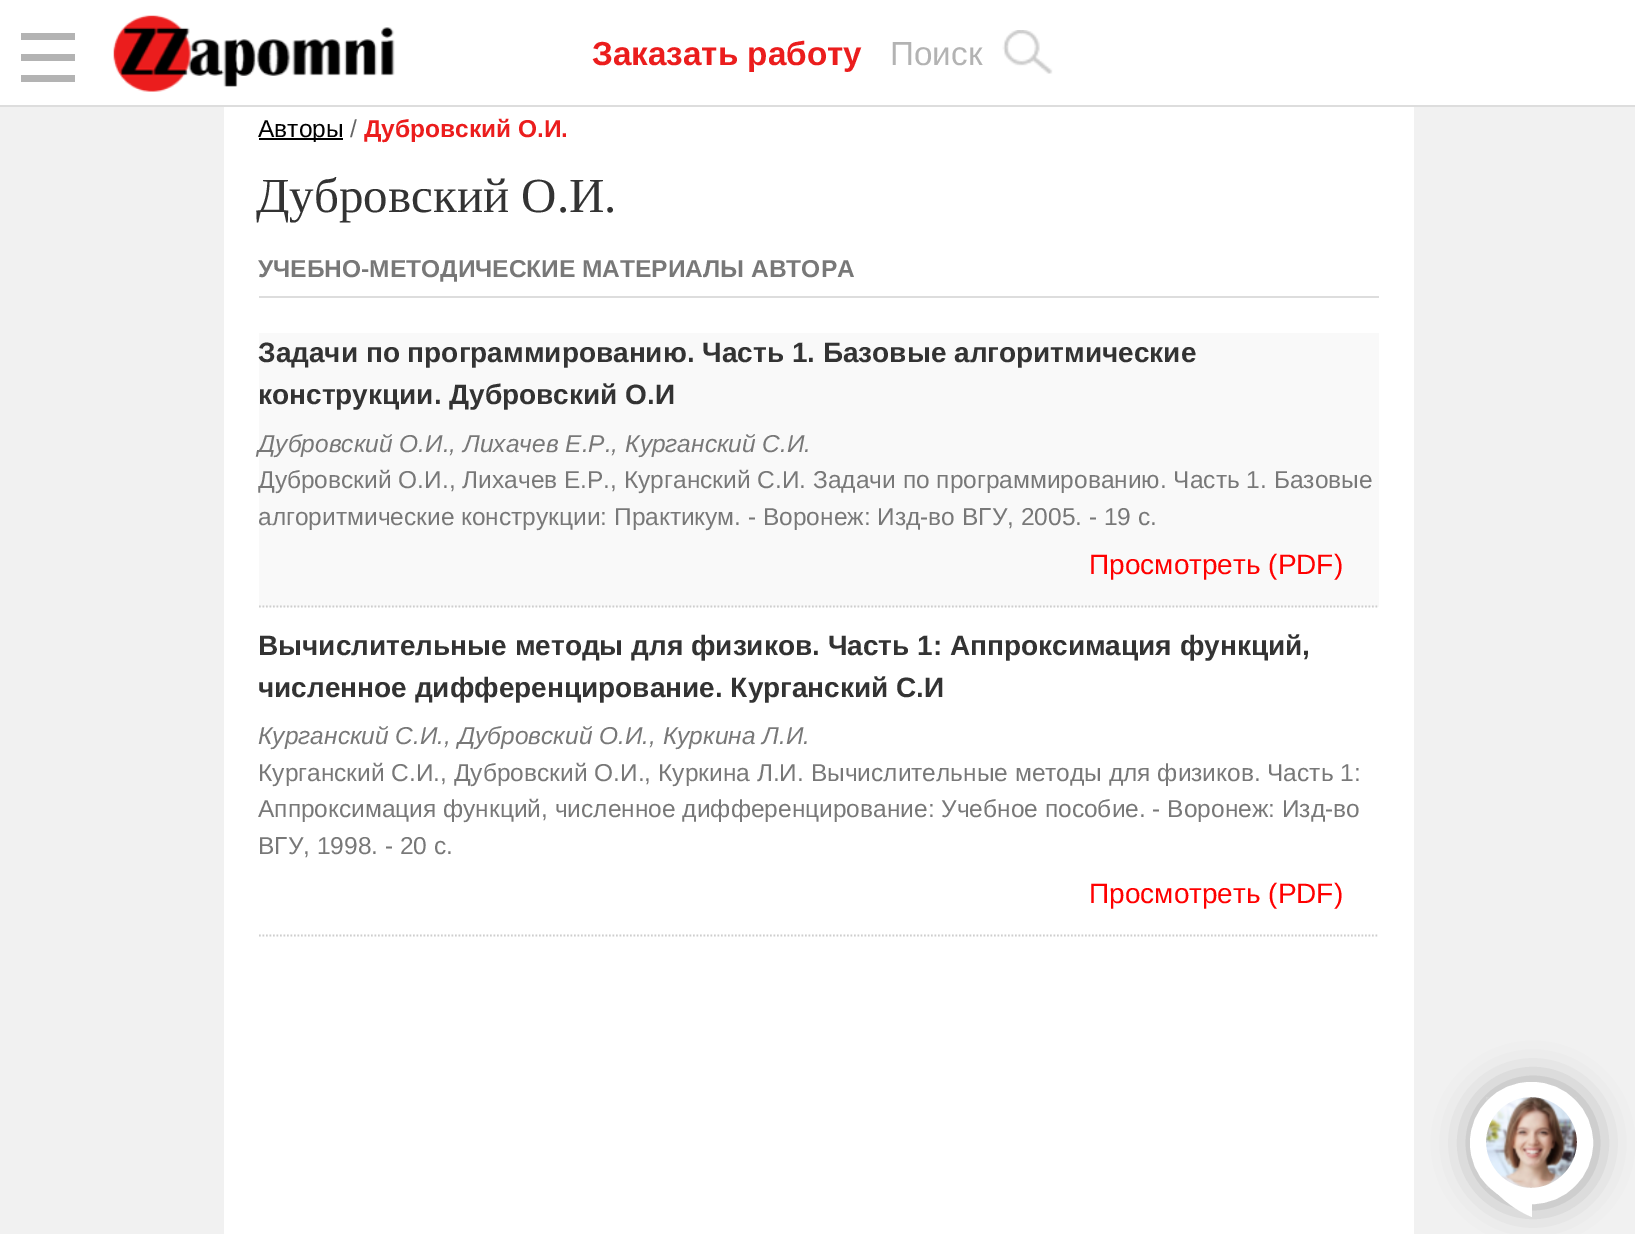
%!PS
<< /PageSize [1635 1234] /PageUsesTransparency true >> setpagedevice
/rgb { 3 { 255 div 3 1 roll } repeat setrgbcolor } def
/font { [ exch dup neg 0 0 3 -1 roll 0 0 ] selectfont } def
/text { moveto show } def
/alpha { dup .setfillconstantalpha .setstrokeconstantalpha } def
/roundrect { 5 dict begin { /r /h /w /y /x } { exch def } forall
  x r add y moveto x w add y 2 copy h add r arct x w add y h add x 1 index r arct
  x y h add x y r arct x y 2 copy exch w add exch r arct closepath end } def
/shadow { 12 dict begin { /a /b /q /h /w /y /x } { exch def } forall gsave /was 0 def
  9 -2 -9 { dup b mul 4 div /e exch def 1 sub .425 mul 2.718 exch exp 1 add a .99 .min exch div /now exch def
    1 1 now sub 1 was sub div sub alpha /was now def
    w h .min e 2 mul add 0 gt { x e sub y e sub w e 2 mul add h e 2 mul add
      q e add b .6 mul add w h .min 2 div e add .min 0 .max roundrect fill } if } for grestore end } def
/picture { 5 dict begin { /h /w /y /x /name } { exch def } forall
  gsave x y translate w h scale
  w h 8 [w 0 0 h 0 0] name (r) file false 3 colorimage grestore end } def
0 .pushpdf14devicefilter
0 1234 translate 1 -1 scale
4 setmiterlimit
241 241 241 rgb
0 0 1635 1234 rectfill
255 255 255 rgb
0 0 1635 105 rectfill
221 221 221 rgb
0 105 1635 2 rectfill
179 179 179 rgb
21 33 54 7 rectfill
21 54 54 7 rectfill
21 75 54 7 rectfill
(img_01.rgb) 113 15 282 77 picture
(img_02.rgb) 1002 30 51 44 picture
255 255 255 rgb
224 107 1190 1127 rectfill
0 0 0 rgb
259 138 84 2 rectfill
221 221 221 rgb
259 296 1120 2 rectfill
249 249 249 rgb
259 333 1120 274 rectfill
206 206 206 rgb
1.8 setlinewidth
[1.75 1.75] 0 setdash
259 606.5 moveto 1120 0 rlineto stroke
259 935.5 moveto 1120 0 rlineto stroke
157 157 157 rgb
1470 1080 126 126 63 17.5 0.85 shadow
255 255 255 rgb
12 setlinewidth
[] 0 setdash
1476 1088 111 110 55 roundrect stroke
(img_03.rgb) 1486 1097 91 91 picture
gsave
1475 1087 112 131 rectclip
1577 1142 moveto 0 25 -21 46 -46 46 rcurveto -25 0 -45 -21 -45 -46 rcurveto 0 -25 20 -45 45 -45 rcurveto 25 0 46 20 46 45 rcurveto closepath 1475 1141 moveto -1 42 37 68 57 76 rcurveto 0 -19 rlineto 30 0 55 -25 55 -56 rcurveto 0 -31 -25 -56 -56 -56 rcurveto -31 0 -55 25 -56 55 rcurveto closepath eofill
grestore
/LiberationSans-Bold 33.25 font
235 29 29 rgb
(Заказать работу) 592 65 text
/LiberationSans-Regular 33.25 font
179 179 179 rgb
(Поиск) 890 65 text
/LiberationSans-Regular 24.5 font
0 0 0 rgb
(Авторы) 258 137 text
102 102 102 rgb
(/) 350 137 text
/LiberationSans-Bold 24.5 font
235 29 29 rgb
(Дубровский О.И.) 364 137 text
/LiberationSerif-Regular 49 font
51 51 51 rgb
(Дубровский О.И.) 256 212 text
/LiberationSans-Bold 24.5 font
120 120 120 rgb
(УЧЕБНО-МЕТОДИЧЕСКИЕ МАТЕРИАЛЫ АВТОРА) 258 277 text
/LiberationSans-Bold 28 font
51 51 51 rgb
(Задачи по программированию. Часть 1. Базовые алгоритмические) 258 362 text
(конструкции. Дубровский О.И) 258 404 text
/LiberationSans-Italic 24.5 font
120 120 120 rgb
(Дубровский О.И., Лихачев Е.Р., Курганский С.И.) 258 452 text
/LiberationSans-Regular 24.5 font
(Дубровский О.И., Лихачев Е.Р., Курганский С.И. Задачи по программированию. Часть 1. Базовые) 258 488 text
(алгоритмические конструкции: Практикум. - Воронеж: Изд-во ВГУ, 2005. - 19 с.) 258 525 text
/LiberationSans-Regular 28 font
255 0 0 rgb
(Просмотреть \(PDF\)) 1089 574 text
/LiberationSans-Bold 28 font
51 51 51 rgb
(Вычислительные методы для физиков. Часть 1: Аппроксимация функций,) 258 655 text
(численное дифференцирование. Курганский С.И) 258 697 text
/LiberationSans-Italic 24.5 font
120 120 120 rgb
(Курганский С.И., Дубровский О.И., Куркина Л.И.) 258 744 text
/LiberationSans-Regular 24.5 font
(Курганский С.И., Дубровский О.И., Куркина Л.И. Вычислительные методы для физиков. Часть 1:) 258 781 text
(Аппроксимация функций, численное дифференцирование: Учебное пособие. - Воронеж: Изд-во) 258 817 text
(ВГУ, 1998. - 20 с.) 258 854 text
/LiberationSans-Regular 28 font
255 0 0 rgb
(Просмотреть \(PDF\)) 1089 903 text
.poppdf14devicefilter showpage
